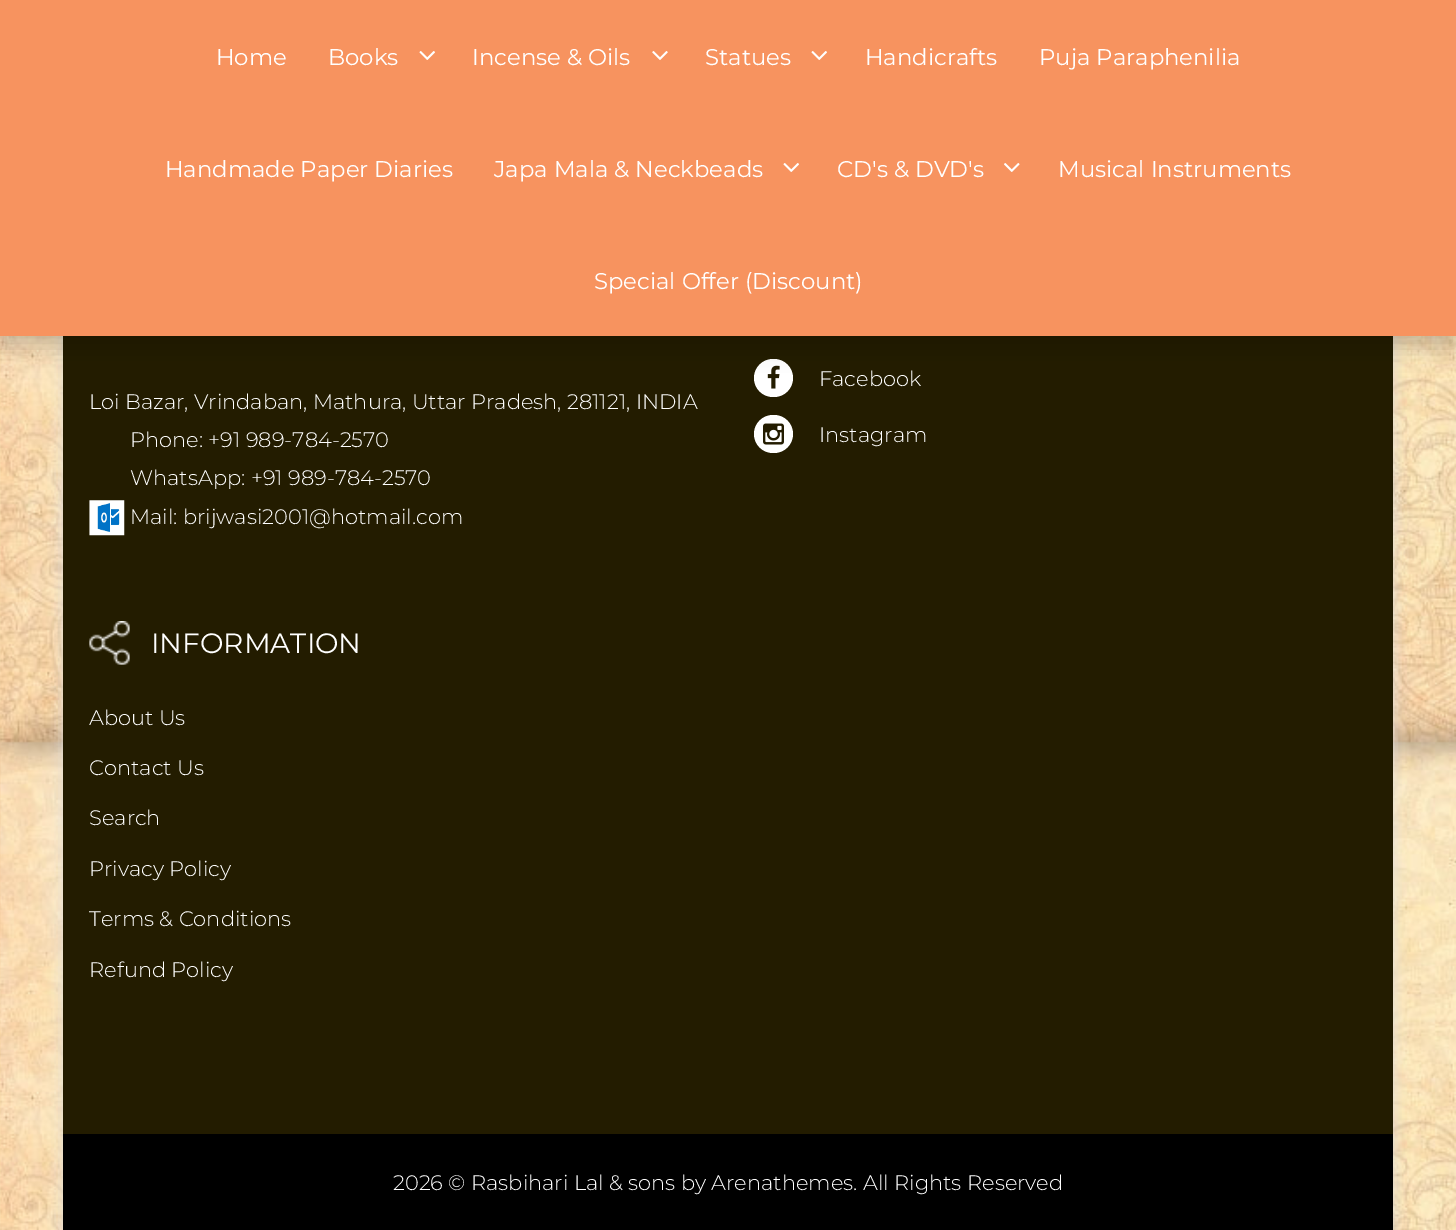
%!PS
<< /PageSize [1456 1230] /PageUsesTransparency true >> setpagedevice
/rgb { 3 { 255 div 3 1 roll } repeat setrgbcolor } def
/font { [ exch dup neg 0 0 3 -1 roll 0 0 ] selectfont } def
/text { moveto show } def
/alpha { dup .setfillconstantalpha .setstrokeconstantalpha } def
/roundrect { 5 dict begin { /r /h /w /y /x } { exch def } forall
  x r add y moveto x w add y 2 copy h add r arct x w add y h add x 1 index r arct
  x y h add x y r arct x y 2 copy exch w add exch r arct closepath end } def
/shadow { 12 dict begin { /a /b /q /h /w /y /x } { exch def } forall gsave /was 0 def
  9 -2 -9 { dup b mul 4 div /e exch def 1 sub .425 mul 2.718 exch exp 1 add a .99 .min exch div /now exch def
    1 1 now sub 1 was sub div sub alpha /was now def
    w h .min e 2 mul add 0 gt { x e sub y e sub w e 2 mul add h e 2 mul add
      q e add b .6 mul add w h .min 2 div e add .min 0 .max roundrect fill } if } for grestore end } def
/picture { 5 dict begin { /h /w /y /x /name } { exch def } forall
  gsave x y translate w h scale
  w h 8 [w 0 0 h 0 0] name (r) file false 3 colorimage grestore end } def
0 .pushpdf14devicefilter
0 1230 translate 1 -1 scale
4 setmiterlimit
255 255 255 rgb
0 0 1456 1230 rectfill
(img_01.rgb) 0 336 1456 894 picture
221 221 221 rgb
63 -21 1330 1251 0 7 1 shadow
35 28 0 rgb
63 336 1330 798 rectfill
255 255 255 rgb
754 359 39 38 19 roundrect fill
(img_06.rgb) 767 365 13 24 picture
0 0 0 rgb
0 11 1456 336 0 11.5 0.2 shadow
247 147 95 rgb
0 0 1456 336 rectfill
(img_02.rgb) 419 51 16 9 picture
(img_03.rgb) 652 51 16 9 picture
(img_02.rgb) 811 51 16 9 picture
(img_02.rgb) 783 163 16 9 picture
(img_04.rgb) 1004 163 16 9 picture
(img_05.rgb) 89 500 36 36 picture
255 255 255 rgb
754 415 39 38 19 roundrect fill
(img_07.rgb) 763 423 21 22 picture
(img_08.rgb) 89 621 41 44 picture
0 0 0 rgb
63 1134 1330 96 rectfill
/Montserrat-Regular 22.75 font
255 255 255 rgb
(Home) 216 65 text
(Books) 328 65 text
(Incense & Oils) 472 65 text
(Statues) 705 65 text
(Handicrafts) 865 65 text
(Puja Paraphenilia) 1039 65 text
(Handmade Paper Diaries) 165 177 text
(Japa Mala & Neckbeads) 494 177 text
(CD's & DVD's) 837 177 text
(Musical Instruments) 1058 177 text
(Special Offer \(Discount\)) 594 289 text
/Montserrat-Light 21 font
(Loi Bazar, Vrindaban, Mathura, Uttar Pradesh, 281121, INDIA) 89 409 text
(Phone: +91 989-784-2570) 130 447 text
(WhatsApp: +91 989-784-2570) 130 485 text
(Mail: brijwasi2001@hotmail.com) 130 524 text
(Facebook) 819 386 text
(Instagram) 819 442 text
/Montserrat-Regular 28 font
(INFORMATION) 151 653 text
/Montserrat-Light 21 font
(About Us) 89 725 text
(Contact Us) 89 775 text
(Search) 89 825 text
(Privacy Policy) 89 876 text
(Terms & Conditions) 89 926 text
(Refund Policy) 89 977 text
(2026 © Rasbihari Lal & sons by Arenathemes. All Rights Reserved) 393 1190 text
.poppdf14devicefilter showpage
